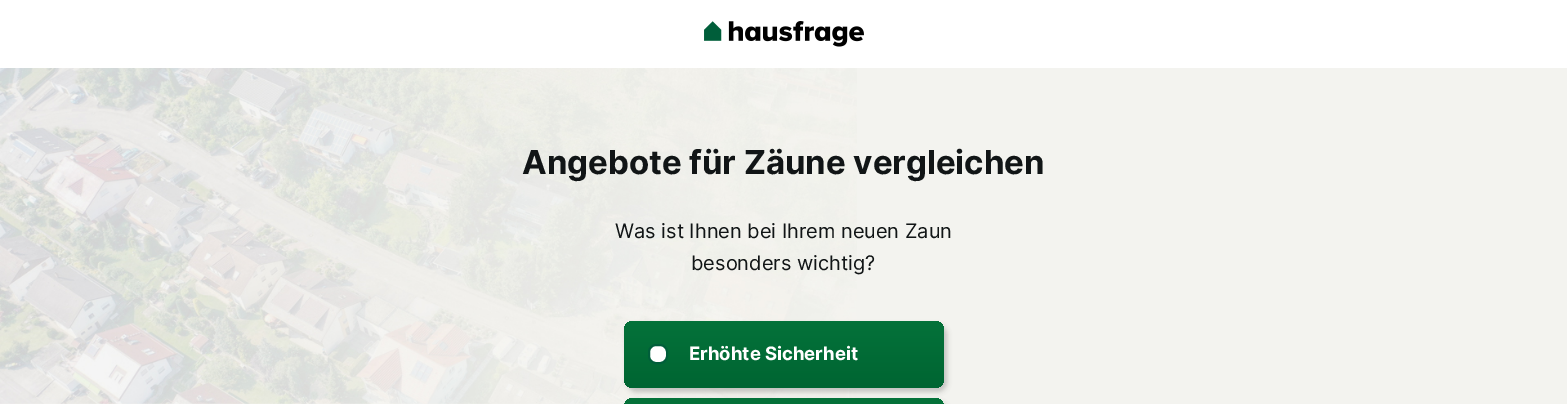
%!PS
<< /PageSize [1567 404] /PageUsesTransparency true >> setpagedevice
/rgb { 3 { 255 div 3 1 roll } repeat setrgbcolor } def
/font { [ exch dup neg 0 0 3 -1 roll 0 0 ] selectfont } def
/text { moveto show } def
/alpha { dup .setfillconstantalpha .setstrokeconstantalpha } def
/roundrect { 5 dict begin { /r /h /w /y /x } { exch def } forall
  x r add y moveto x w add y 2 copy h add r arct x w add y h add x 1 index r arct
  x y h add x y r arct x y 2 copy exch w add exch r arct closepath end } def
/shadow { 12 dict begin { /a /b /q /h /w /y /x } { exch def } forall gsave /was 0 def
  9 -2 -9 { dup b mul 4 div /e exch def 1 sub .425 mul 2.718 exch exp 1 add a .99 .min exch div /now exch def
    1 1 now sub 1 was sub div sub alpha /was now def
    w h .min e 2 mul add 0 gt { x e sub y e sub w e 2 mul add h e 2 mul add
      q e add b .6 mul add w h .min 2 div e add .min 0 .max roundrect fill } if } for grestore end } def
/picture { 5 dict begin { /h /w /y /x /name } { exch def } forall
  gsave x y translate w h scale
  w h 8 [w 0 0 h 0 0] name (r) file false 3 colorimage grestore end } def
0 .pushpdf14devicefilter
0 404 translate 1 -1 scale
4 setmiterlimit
255 255 255 rgb
0 0 1567 404 rectfill
(img_01.rgb) 704 21 160 26 picture
243 243 239 rgb
0 68 1567 336 rectfill
(img_02.rgb) 0 68 857 336 picture
16 16 16 rgb
627 325 320 67 9 2.5 0.21 shadow
gsave 624 321 320 67 9 roundrect clip newpath
<< /ShadingType 2 /ColorSpace /DeviceRGB /Coords [784 388 784 321] /Extend [true true] /Function << /FunctionType 2 /Domain [0 1] /C0 [0 0.396 0.196] /C1 [0.016 0.447 0.227] /N 1 >> >> shfill grestore
255 255 255 rgb
649 345 18 18 7 roundrect gsave fill grestore
0 94 58 rgb
2 setlinewidth
stroke
16 16 16 rgb
627 402 320 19 9 2.5 0.21 shadow
gsave 624 398 320 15 9 roundrect clip newpath
<< /ShadingType 2 /ColorSpace /DeviceRGB /Coords [784 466 784 398] /Extend [true true] /Function << /FunctionType 2 /Domain [0 1] /C0 [0 0.396 0.196] /C1 [0.016 0.447 0.227] /N 1 >> >> shfill grestore
/Inter-Bold 33 font
17 21 22 rgb
(Angebote für Zäune vergleichen) 522 174 text
/Inter-Regular 20 font
(Was ist Ihnen bei Ihrem neuen Zaun) 615 238 text
(besonders wichtig?) 691 270 text
/Inter-Bold 18.5 font
255 255 255 rgb
(Erhöhte Sicherheit) 689 360 text
.poppdf14devicefilter showpage
